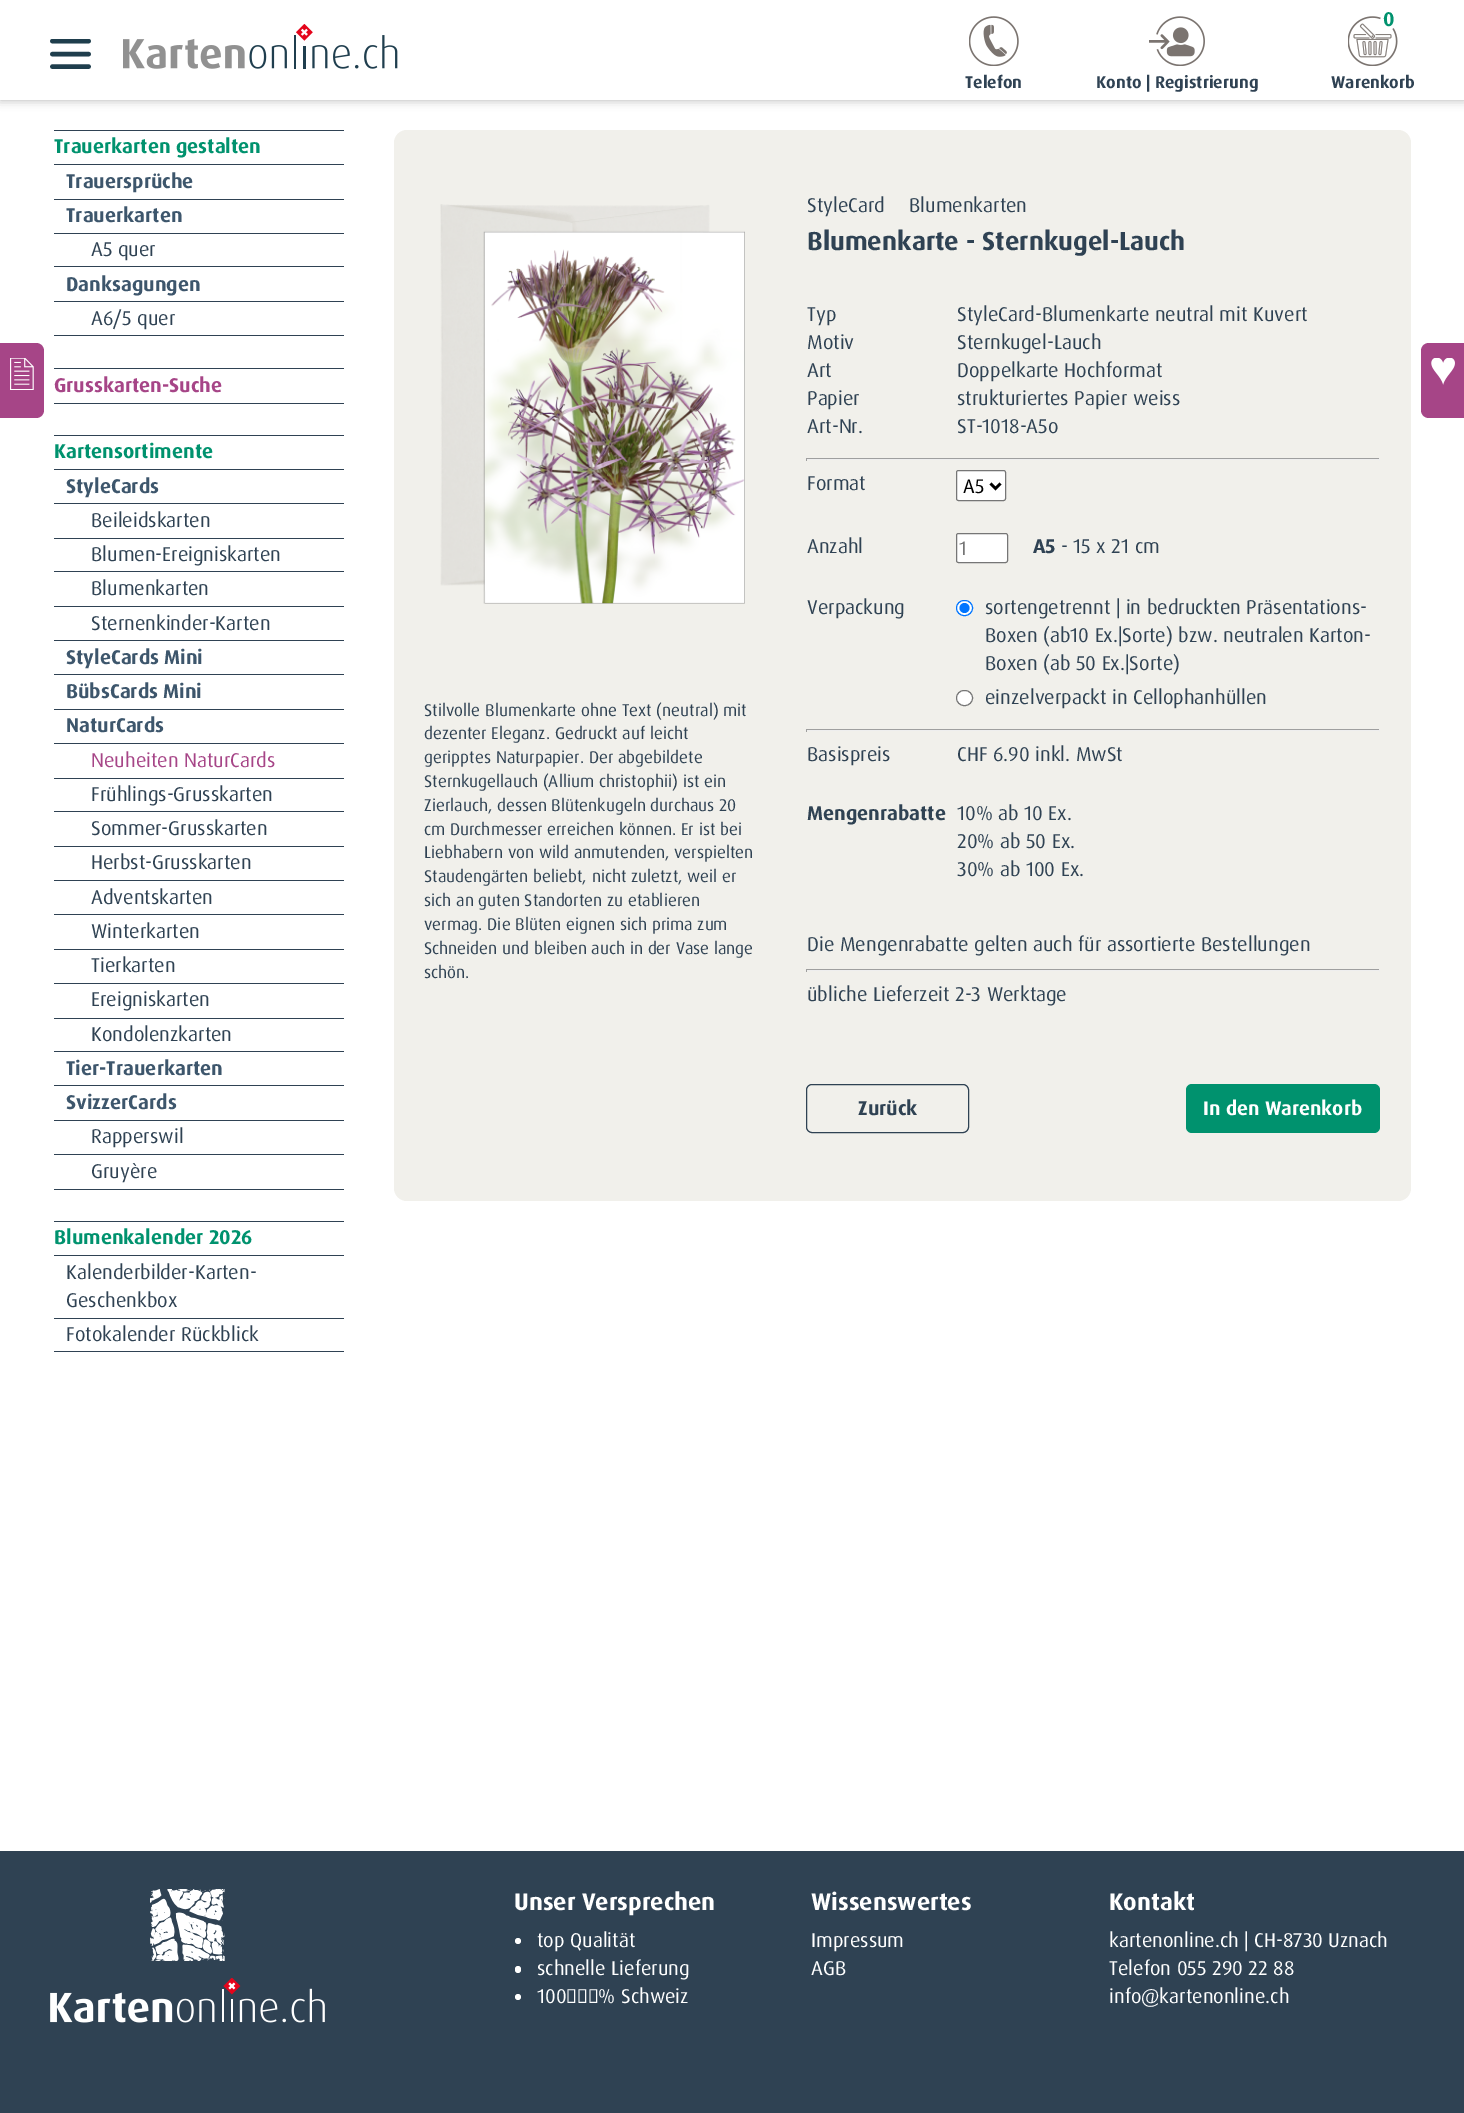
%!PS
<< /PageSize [1464 2113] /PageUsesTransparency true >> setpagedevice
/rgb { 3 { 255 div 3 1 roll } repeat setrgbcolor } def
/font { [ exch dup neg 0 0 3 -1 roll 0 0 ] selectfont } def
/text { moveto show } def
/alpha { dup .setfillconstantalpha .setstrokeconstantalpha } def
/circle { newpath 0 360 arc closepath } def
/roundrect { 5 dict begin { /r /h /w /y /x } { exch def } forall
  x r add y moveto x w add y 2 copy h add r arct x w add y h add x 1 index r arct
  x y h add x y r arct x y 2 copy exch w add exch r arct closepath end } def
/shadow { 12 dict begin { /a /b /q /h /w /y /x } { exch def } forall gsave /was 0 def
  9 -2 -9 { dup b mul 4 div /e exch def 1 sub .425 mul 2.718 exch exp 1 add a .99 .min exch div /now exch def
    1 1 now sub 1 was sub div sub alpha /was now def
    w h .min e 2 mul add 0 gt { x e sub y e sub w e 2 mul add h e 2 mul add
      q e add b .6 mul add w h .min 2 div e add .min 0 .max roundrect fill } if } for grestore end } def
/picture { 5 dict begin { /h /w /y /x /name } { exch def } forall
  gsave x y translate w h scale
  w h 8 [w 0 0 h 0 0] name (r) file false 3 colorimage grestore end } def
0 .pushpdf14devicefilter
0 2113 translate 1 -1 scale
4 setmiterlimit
47 66 83 rgb
0 0 1464 2113 rectfill
255 255 255 rgb
0 100 1464 1751 rectfill
0 0 0 rgb
0 0 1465 100 0 5 0.3 shadow
255 255 255 rgb
0 0 1464 100 rectfill
gsave
50 39 41 30 rectclip
31 62 77 rgb
4.6 setlinewidth
1 setlinecap
52.5 41 moveto 36 0 rlineto stroke
grestore
31 62 77 rgb
4.6 setlinewidth
1 setlinecap
52.5 54 moveto 36 0 rlineto 52.5 66.5 moveto 36 0 rlineto stroke
(img_01.rgb) 123 24 275 45 picture
(img_02.rgb) 969 16 50 50 picture
(img_03.rgb) 1149 16 56 50 picture
(img_04.rgb) 1348 16 50 50 picture
47 66 83 rgb
54 130 290 1 rectfill
54 164 290 1 rectfill
54 199 290 1 rectfill
54 233 290 1 rectfill
54 266 290 1 rectfill
54 335 290 1 rectfill
54 301 290 1 rectfill
54 368 290 1 rectfill
54 403 290 1 rectfill
54 435 290 1 rectfill
54 469 290 1 rectfill
54 503 290 1 rectfill
54 538 290 1 rectfill
54 571 290 1 rectfill
54 606 290 1 rectfill
54 640 290 1 rectfill
54 674 290 1 rectfill
54 709 290 1 rectfill
54 743 290 1 rectfill
54 778 290 1 rectfill
54 811 290 1 rectfill
54 846 290 1 rectfill
54 880 290 1 rectfill
54 914 290 1 rectfill
54 949 290 1 rectfill
54 983 290 1 rectfill
54 1018 290 1 rectfill
54 1051 290 1 rectfill
54 1085 290 1 rectfill
54 1189 290 1 rectfill
54 1120 290 1 rectfill
54 1154 290 1 rectfill
54 1221 290 1 rectfill
54 1351 290 1 rectfill
54 1255 290 1 rectfill
54 1318 290 1 rectfill
241 240 235 rgb
394 130 1017 1071 13 roundrect fill
(img_05.rgb) 440 204 305 400 picture
159 159 159 rgb
806 458 574 1 rectfill
238 238 238 rgb
1379 458 1 3 rectfill
806 459 574 1 rectfill
159 159 159 rgb
806 458 1 3 rectfill
255 255 255 rgb
956.5 470.5 49 30 2 roundrect gsave fill grestore
118 118 118 rgb
1 setlinewidth
0 setlinecap
stroke
0 0 0 rgb
2.5 setlinewidth
990.5 483.5 moveto 5 5 rlineto 5 -5 rlineto stroke
255 255 255 rgb
956.5 533.5 51 29 2 roundrect gsave fill grestore
118 118 118 rgb
1 setlinewidth
stroke
255 255 255 rgb
956.5 600.5 16 15 7.5 roundrect gsave fill grestore
0 117 255 rgb
stroke
964.5 608 5 circle fill
255 255 255 rgb
956.5 690.5 16 15 7.5 roundrect gsave fill grestore
118 118 118 rgb
stroke
159 159 159 rgb
806 729 574 1 rectfill
238 238 238 rgb
1379 729 1 3 rectfill
806 730 574 1 rectfill
159 159 159 rgb
806 729 1 3 rectfill
806 969 574 1 rectfill
238 238 238 rgb
1379 969 1 3 rectfill
806 970 574 1 rectfill
159 159 159 rgb
806 969 1 3 rectfill
0 146 110 rgb
1186 1084 194 49 6 roundrect fill
47 66 83 rgb
806.5 1084.5 162 48 5.5 roundrect stroke
166 69 135 rgb
0 343 moveto 36 0 rlineto 4.5 0 8 3.5 8 8 rcurveto 0 59 rlineto 0 4.5 -3.5 8 -8 8 rcurveto -36 0 rlineto closepath fill
(img_06.rgb) 10 358 24 32 picture
1429 343 moveto 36 0 rlineto 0 75 rlineto -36 0 rlineto -4.5 0 -8 -3.5 -8 -8 rcurveto 0 -59 rlineto 0 -4.5 3.5 -8 8 -8 rcurveto closepath fill
(img_07.rgb) 1431 358 24 27 picture
(img_08.rgb) 150 1889 75 72 picture
(img_09.rgb) 50 1978 275 45 picture
255 255 255 rgb
518 1941 3 circle fill
515 1966 6 7 3 roundrect fill
518 1997 3 circle fill
/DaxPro-Bold 17 font
47 66 83 rgb
(Telefon) 965 88 text
(Konto | Registrierung) 1096 88 text
/DaxPro-Bold 20 font
0 146 110 rgb
(0) 1383 26 text
/DaxPro-Bold 17 font
47 66 83 rgb
(Warenkorb) 1331 88 text
/DaxPro-Bold 20 font
0 146 110 rgb
(Trauerkarten gestalten) 54 153 text
61 86 108 rgb
(Trauersprüche) 66 188 text
(Trauerkarten) 66 222 text
/DaxPro-Regular 20 font
47 66 83 rgb
(A5 quer) 91 256 text
/DaxPro-Bold 20 font
61 86 108 rgb
(Danksagungen) 66 291 text
/DaxPro-Regular 20 font
47 66 83 rgb
(A6/5 quer) 91 325 text
/DaxPro-Bold 20 font
166 69 135 rgb
(Grusskarten-Suche) 54 392 text
0 146 110 rgb
(Kartensortimente) 54 458 text
61 86 108 rgb
(StyleCards) 66 493 text
/DaxPro-Regular 20 font
47 66 83 rgb
(Beileidskarten) 91 527 text
(Blumen-Ereigniskarten) 91 561 text
(Blumenkarten) 91 595 text
(Sternenkinder-Karten) 91 630 text
/DaxPro-Bold 20 font
61 86 108 rgb
(StyleCards Mini) 66 664 text
(BübsCards Mini) 66 698 text
(NaturCards) 66 732 text
/DaxPro-Regular 20 font
166 69 135 rgb
(Neuheiten NaturCards) 91 767 text
47 66 83 rgb
(Frühlings-Grusskarten) 91 801 text
(Sommer-Grusskarten) 91 835 text
(Herbst-Grusskarten) 91 869 text
(Adventskarten) 91 904 text
(Winterkarten) 91 938 text
(Tierkarten) 91 972 text
(Ereigniskarten) 91 1006 text
(Kondolenzkarten) 91 1041 text
/DaxPro-Bold 20 font
61 86 108 rgb
(Tier-Trauerkarten) 66 1075 text
(SvizzerCards) 66 1109 text
/DaxPro-Regular 20 font
47 66 83 rgb
(Rapperswil) 91 1143 text
(Gruyère) 91 1178 text
/DaxPro-Bold 20 font
0 146 110 rgb
(Blumenkalender 2026) 54 1244 text
/DaxPro-Regular 20 font
47 66 83 rgb
(Kalenderbilder-Karten-) 66 1279 text
(Geschenkbox) 66 1307 text
(Fotokalender Rückblick) 66 1341 text
/DaxPro-Regular 17 font
(Stilvolle Blumenkarte ohne Text \(neutral\) mit) 424 716 text
(dezenter Eleganz. Gedruckt auf leicht) 424 739 text
(geripptes Naturpapier. Der abgebildete) 424 763 text
(Sternkugellauch \(Allium christophii\) ist ein) 424 787 text
(Zierlauch, dessen Blütenkugeln durchaus 20) 424 811 text
(cm Durchmesser erreichen können. Er ist bei) 424 835 text
(Liebhabern von wild anmutenden, verspielten) 424 858 text
(Staudengärten beliebt, nicht zuletzt, weil er) 424 882 text
(sich an guten Standorten zu etablieren) 424 906 text
(vermag. Die Blüten eignen sich prima zum) 424 930 text
(Schneiden und bleiben auch in der Vase lange) 424 954 text
(schön.) 424 978 text
/DaxPro-Regular 20 font
(StyleCard) 807 212 text
(Blumenkarten) 909 212 text
/DaxPro-Bold 26 font
(Blumenkarte - Sternkugel-Lauch) 807 250 text
/DaxPro-Regular 20 font
(Typ) 807 321 text
(StyleCard-Blumenkarte neutral mit Kuvert) 957 321 text
(Motiv) 807 349 text
(Sternkugel-Lauch) 957 349 text
(Art) 807 377 text
(Doppelkarte Hochformat) 957 377 text
(Papier) 807 405 text
(strukturiertes Papier weiss) 957 405 text
(Art-Nr.) 807 433 text
(ST-1018-A5o) 957 433 text
(Format) 807 490 text
/DaxPro-Regular 19.75 font
0 0 0 rgb
(A5) 963 493 text
/DaxPro-Regular 20 font
47 66 83 rgb
(Anzahl) 807 553 text
/DaxPro-Regular 19.75 font
117 117 117 rgb
(1) 959 555 text
/DaxPro-Bold 20 font
47 66 83 rgb
(A5) 1033 553 text
/DaxPro-Regular 20 font
(- 15 x 21 cm) 1061 553 text
(Verpackung) 807 614 text
(sortengetrennt | in bedruckten Präsentations-) 985 614 text
(Boxen \(ab10 Ex.|Sorte\) bzw. neutralen Karton-) 985 642 text
(Boxen \(ab 50 Ex.|Sorte\)) 985 670 text
(einzelverpackt in Cellophanhüllen) 985 704 text
(Basispreis) 807 761 text
(CHF 6.90 inkl. MwSt) 957 761 text
/DaxPro-Bold 20 font
(Mengenrabatte) 807 820 text
/DaxPro-Regular 20 font
(10% ab 10 Ex.) 957 820 text
(20% ab 50 Ex.) 957 848 text
(30% ab 100 Ex.) 957 876 text
(Die Mengenrabatte gelten auch für assortierte Bestellungen) 807 951 text
(übliche Lieferzeit 2-3 Werktage) 807 1001 text
/DaxPro-Bold 19.75 font
255 255 255 rgb
(In den Warenkorb) 1203 1115 text
/DaxPro-Bold 20 font
47 66 83 rgb
(Zurück) 858 1115 text
/DaxPro-Bold 24 font
255 255 255 rgb
(Unser Versprechen) 514 1910 text
/DaxPro-Regular 20 font
(top Qualität) 537 1947 text
(schnelle Lieferung) 537 1975 text
(100 % Schweiz) 537 2003 text
/DaxPro-Bold 24 font
(Wissenswertes) 811 1910 text
/DaxPro-Regular 20 font
(Impressum) 811 1947 text
(AGB) 811 1975 text
/DaxPro-Bold 24 font
(Kontakt) 1109 1910 text
/DaxPro-Regular 20 font
(kartenonline.ch | CH-8730 Uznach) 1109 1947 text
(Telefon 055 290 22 88) 1109 1975 text
(info@kartenonline.ch) 1109 2003 text
.poppdf14devicefilter showpage
